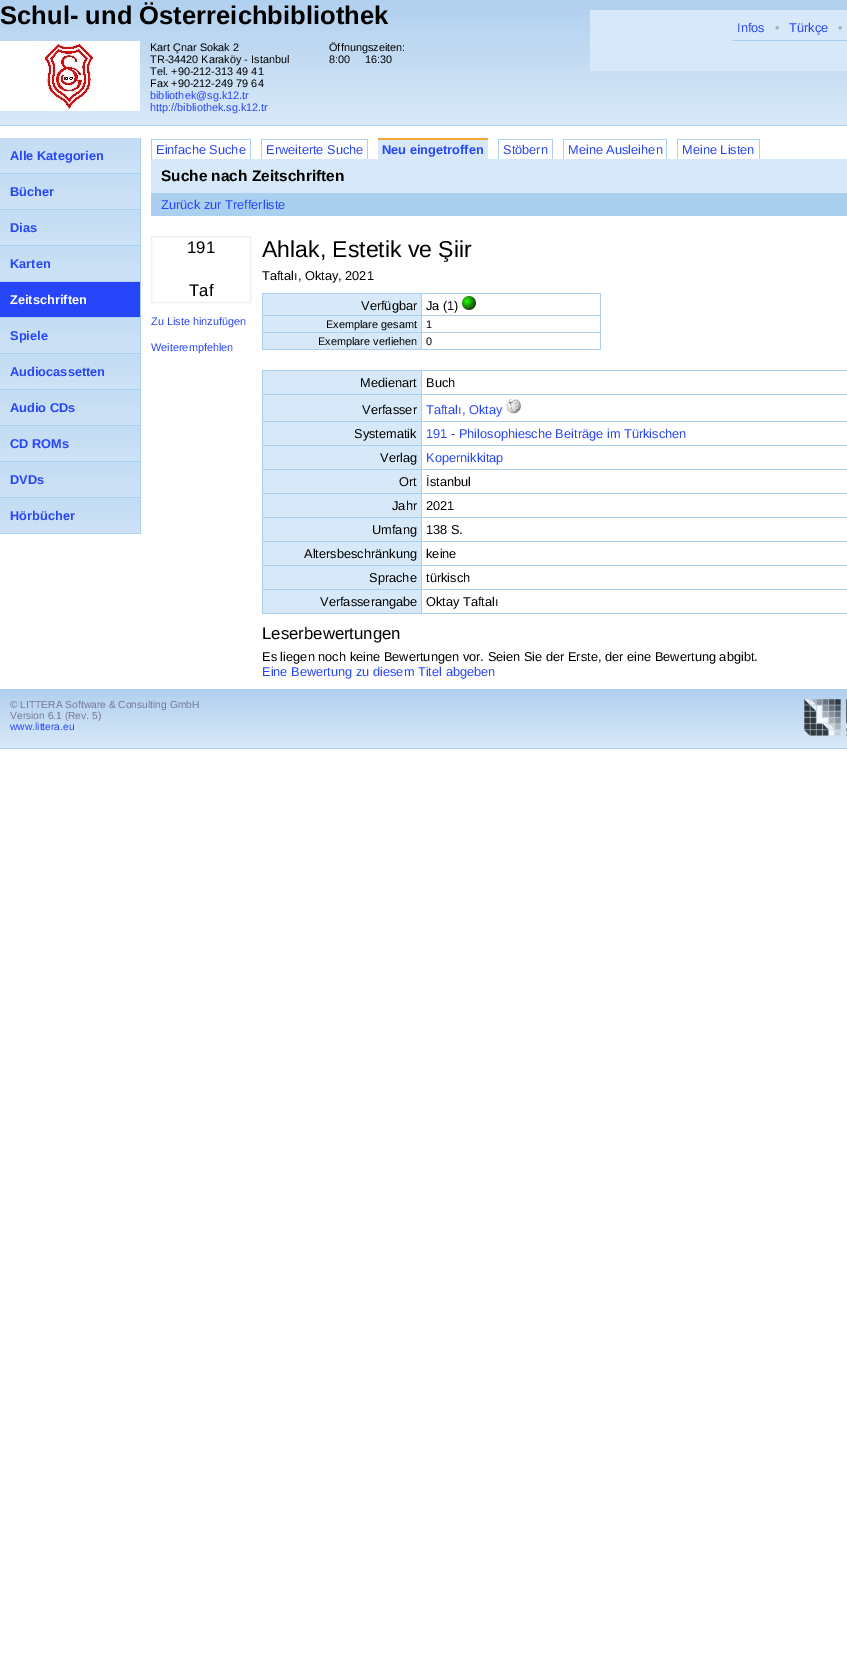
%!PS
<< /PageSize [847 1661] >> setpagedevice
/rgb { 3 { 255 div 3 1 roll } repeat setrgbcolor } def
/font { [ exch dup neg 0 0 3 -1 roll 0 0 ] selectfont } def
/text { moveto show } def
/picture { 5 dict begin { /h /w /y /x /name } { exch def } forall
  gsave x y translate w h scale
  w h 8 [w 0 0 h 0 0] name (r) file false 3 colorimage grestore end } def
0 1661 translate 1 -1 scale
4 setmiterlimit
255 255 255 rgb
0 0 847 1661 rectfill
gsave 0 0 moveto 847 0 rlineto 0 125 rlineto -847 0 rlineto closepath clip newpath
<< /ShadingType 2 /ColorSpace /DeviceRGB /Coords [424 0 424 125] /Extend [true true] /Function << /FunctionType 2 /Domain [0 1] /C0 [0.69 0.816 0.937] /C1 [0.851 0.914 0.973] /N 1 >> >> shfill grestore
172 208 239 rgb
0 125 847 1 rectfill
(img_01.rgb) 0 41 140 70 picture
215 233 248 rgb
590 10 257 61 rectfill
172 208 239 rgb
732 40 115 1 rectfill
gsave 0 138 moveto 140 0 rlineto 0 35 rlineto -140 0 rlineto closepath clip newpath
<< /ShadingType 2 /ColorSpace /DeviceRGB /Coords [70 138 70 173] /Extend [true true] /Function << /FunctionType 2 /Domain [0 1] /C0 [0.765 0.867 0.957] /C1 [0.808 0.886 0.965] /N 1 >> >> shfill grestore
140 138 1 396 rectfill
0 173 141 1 rectfill
gsave 0 174 moveto 140 0 rlineto 0 35 rlineto -140 0 rlineto closepath clip newpath
<< /ShadingType 2 /ColorSpace /DeviceRGB /Coords [70 174 70 209] /Extend [true true] /Function << /FunctionType 2 /Domain [0 1] /C0 [0.765 0.867 0.957] /C1 [0.808 0.886 0.965] /N 1 >> >> shfill grestore
0 209 141 1 rectfill
gsave 0 210 moveto 140 0 rlineto 0 35 rlineto -140 0 rlineto closepath clip newpath
<< /ShadingType 2 /ColorSpace /DeviceRGB /Coords [70 210 70 245] /Extend [true true] /Function << /FunctionType 2 /Domain [0 1] /C0 [0.765 0.867 0.957] /C1 [0.808 0.886 0.965] /N 1 >> >> shfill grestore
0 245 141 1 rectfill
gsave 0 246 moveto 140 0 rlineto 0 35 rlineto -140 0 rlineto closepath clip newpath
<< /ShadingType 2 /ColorSpace /DeviceRGB /Coords [70 246 70 281] /Extend [true true] /Function << /FunctionType 2 /Domain [0 1] /C0 [0.765 0.867 0.957] /C1 [0.808 0.886 0.965] /N 1 >> >> shfill grestore
0 281 141 1 rectfill
39 69 249 rgb
0 282 140 35 rectfill
172 208 239 rgb
0 317 141 1 rectfill
gsave 0 318 moveto 140 0 rlineto 0 35 rlineto -140 0 rlineto closepath clip newpath
<< /ShadingType 2 /ColorSpace /DeviceRGB /Coords [70 318 70 353] /Extend [true true] /Function << /FunctionType 2 /Domain [0 1] /C0 [0.765 0.867 0.957] /C1 [0.808 0.886 0.965] /N 1 >> >> shfill grestore
0 353 141 1 rectfill
gsave 0 354 moveto 140 0 rlineto 0 35 rlineto -140 0 rlineto closepath clip newpath
<< /ShadingType 2 /ColorSpace /DeviceRGB /Coords [70 354 70 389] /Extend [true true] /Function << /FunctionType 2 /Domain [0 1] /C0 [0.765 0.867 0.957] /C1 [0.808 0.886 0.965] /N 1 >> >> shfill grestore
0 389 141 1 rectfill
gsave 0 390 moveto 140 0 rlineto 0 35 rlineto -140 0 rlineto closepath clip newpath
<< /ShadingType 2 /ColorSpace /DeviceRGB /Coords [70 390 70 425] /Extend [true true] /Function << /FunctionType 2 /Domain [0 1] /C0 [0.765 0.867 0.957] /C1 [0.808 0.886 0.965] /N 1 >> >> shfill grestore
0 425 141 1 rectfill
gsave 0 426 moveto 140 0 rlineto 0 35 rlineto -140 0 rlineto closepath clip newpath
<< /ShadingType 2 /ColorSpace /DeviceRGB /Coords [70 426 70 461] /Extend [true true] /Function << /FunctionType 2 /Domain [0 1] /C0 [0.765 0.867 0.957] /C1 [0.808 0.886 0.965] /N 1 >> >> shfill grestore
0 461 141 1 rectfill
gsave 0 462 moveto 140 0 rlineto 0 35 rlineto -140 0 rlineto closepath clip newpath
<< /ShadingType 2 /ColorSpace /DeviceRGB /Coords [70 462 70 497] /Extend [true true] /Function << /FunctionType 2 /Domain [0 1] /C0 [0.765 0.867 0.957] /C1 [0.808 0.886 0.965] /N 1 >> >> shfill grestore
0 497 141 1 rectfill
gsave 0 498 moveto 140 0 rlineto 0 35 rlineto -140 0 rlineto closepath clip newpath
<< /ShadingType 2 /ColorSpace /DeviceRGB /Coords [70 498 70 533] /Extend [true true] /Function << /FunctionType 2 /Domain [0 1] /C0 [0.765 0.867 0.957] /C1 [0.808 0.886 0.965] /N 1 >> >> shfill grestore
0 533 141 1 rectfill
151 139 100 1 rectfill
250 139 1 20 rectfill
151 139 1 20 rectfill
261 139 107 1 rectfill
367 139 1 20 rectfill
261 139 1 20 rectfill
215 233 248 rgb
378 140 110 19 rectfill
241 166 48 rgb
378 138 110 2 rectfill
172 208 239 rgb
498 139 55 1 rectfill
552 139 1 20 rectfill
498 139 1 20 rectfill
563 139 104 1 rectfill
666 139 1 20 rectfill
563 139 1 20 rectfill
677 139 83 1 rectfill
759 139 1 20 rectfill
677 139 1 20 rectfill
215 233 248 rgb
151 159 696 34 rectfill
171 208 239 rgb
151 193 696 23 rectfill
238 238 238 rgb
151.5 236.5 99 66 rectstroke
215 233 248 rgb
263 294 158 21 rectfill
171 208 239 rgb
421 293 180 1 rectfill
421 315 180 1 rectfill
421 332 180 1 rectfill
600 332 1 18 rectfill
421 349 180 1 rectfill
421 332 1 18 rectfill
262 332 160 1 rectfill
421 315 1 18 rectfill
262 315 160 1 rectfill
421 293 1 23 rectfill
262 293 160 1 rectfill
262 349 160 1 rectfill
262 332 1 18 rectfill
262 315 1 18 rectfill
262 293 1 23 rectfill
600 315 1 18 rectfill
600 293 1 23 rectfill
(img_02.rgb) 462 296 14 14 picture
215 233 248 rgb
263 316 158 16 rectfill
263 333 158 16 rectfill
263 371 158 23 rectfill
171 208 239 rgb
421 370 426 1 rectfill
421 394 426 1 rectfill
421 421 426 1 rectfill
421 445 426 1 rectfill
421 469 426 1 rectfill
421 493 426 1 rectfill
421 517 426 1 rectfill
421 541 426 1 rectfill
421 565 426 1 rectfill
421 589 426 1 rectfill
421 613 426 1 rectfill
421 589 1 25 rectfill
262 589 160 1 rectfill
421 565 1 25 rectfill
262 565 160 1 rectfill
421 541 1 25 rectfill
262 541 160 1 rectfill
421 517 1 25 rectfill
262 517 160 1 rectfill
421 493 1 25 rectfill
262 493 160 1 rectfill
421 469 1 25 rectfill
262 469 160 1 rectfill
421 445 1 25 rectfill
262 445 160 1 rectfill
421 421 1 25 rectfill
262 421 160 1 rectfill
421 394 1 28 rectfill
262 394 160 1 rectfill
421 370 1 25 rectfill
262 370 160 1 rectfill
262 613 160 1 rectfill
262 589 1 25 rectfill
262 565 1 25 rectfill
262 541 1 25 rectfill
262 517 1 25 rectfill
262 493 1 25 rectfill
262 469 1 25 rectfill
262 445 1 25 rectfill
262 421 1 25 rectfill
262 394 1 28 rectfill
262 370 1 25 rectfill
215 233 248 rgb
263 395 158 26 rectfill
(img_03.rgb) 506 399 15 15 picture
263 422 158 23 rectfill
263 446 158 23 rectfill
263 470 158 23 rectfill
263 494 158 23 rectfill
263 518 158 23 rectfill
263 542 158 23 rectfill
263 566 158 23 rectfill
263 590 158 23 rectfill
gsave 0 689 moveto 847 0 rlineto 0 59 rlineto -847 0 rlineto closepath clip newpath
<< /ShadingType 2 /ColorSpace /DeviceRGB /Coords [480 689 480 748] /Extend [true true] /Function << /FunctionType 2 /Domain [0 1] /C0 [0.69 0.816 0.937] /C1 [0.851 0.914 0.973] /N 1 >> >> shfill grestore
172 208 239 rgb
0 748 847 1 rectfill
(img_04.rgb) 804 699 43 37 picture
/LiberationSans-Bold 25.6 font
0 0 0 rgb
(Schul- und Österreichbibliothek) 0 24 text
/LiberationSans-Regular 10.9 font
(Kart Çnar Sokak 2) 150 51 text
(TR-34420 Karaköy - Istanbul) 150 63 text
(Tel. +90-212-313 49 41) 150 75 text
(Fax +90-212-249 79 64) 150 87 text
39 69 249 rgb
(bibliothek@sg.k12.tr) 150 99 text
(http://bibliothek.sg.k12.tr) 150 111 text
0 0 0 rgb
(Öffnungszeiten:) 329 51 text
(8:00) 329 63 text
(16:30) 365 63 text
/LiberationSans-Regular 12.8 font
39 69 249 rgb
(Infos) 737 32 text
170 170 170 rgb
(•) 775 32 text
39 69 249 rgb
(Türkçe) 789 32 text
170 170 170 rgb
(•) 838 32 text
/LiberationSans-Bold 12.8 font
39 69 249 rgb
(Alle Kategorien) 10 160 text
(Bücher) 10 196 text
(Dias) 10 232 text
(Karten) 10 268 text
255 255 255 rgb
(Zeitschriften) 10 304 text
39 69 249 rgb
(Spiele) 10 340 text
(Audiocassetten) 10 376 text
(Audio CDs) 10 412 text
(CD ROMs) 10 448 text
(DVDs) 10 484 text
(Hörbücher) 10 520 text
/LiberationSans-Regular 12.8 font
(Einfache Suche) 156 154 text
(Erweiterte Suche) 266 154 text
/LiberationSans-Bold 12.8 font
(Neu eingetroffen) 382 154 text
/LiberationSans-Regular 12.8 font
(Stöbern) 503 154 text
(Meine Ausleihen) 568 154 text
(Meine Listen) 682 154 text
/LiberationSans-Bold 15.4 font
0 0 0 rgb
(Suche nach Zeitschriften) 161 181 text
/LiberationSans-Regular 12.8 font
39 69 249 rgb
(Zurück zur Trefferliste) 161 209 text
/LiberationSans-Regular 16.75 font
0 0 0 rgb
(191) 187 253 text
(Taf) 189 296 text
/LiberationSans-Regular 10.9 font
39 69 249 rgb
(Zu Liste hinzufügen) 151 325 text
(Weiterempfehlen) 151 351 text
/LiberationSans-Regular 23 font
0 0 0 rgb
(Ahlak, Estetik ve Şiir) 262 257 text
/LiberationSans-Regular 12.8 font
(Taftalı, Oktay, 2021) 262 280 text
(Verfügbar) 361 310 text
(Ja \(1\)) 426 310 text
/LiberationSans-Regular 10.9 font
(Exemplare gesamt) 326 328 text
(1) 426 328 text
(Exemplare verliehen) 318 345 text
(0) 426 345 text
/LiberationSans-Regular 12.8 font
(Medienart) 360 387 text
(Buch) 426 387 text
(Verfasser) 362 414 text
39 69 249 rgb
(Taftalı, Oktay) 426 414 text
0 0 0 rgb
(Systematik) 354 438 text
39 69 249 rgb
(191 - Philosophiesche Beiträge im Türkischen) 426 438 text
0 0 0 rgb
(Verlag) 380 462 text
39 69 249 rgb
(Kopernikkitap) 426 462 text
0 0 0 rgb
(Ort) 399 486 text
(İstanbul) 426 486 text
(Jahr) 392 510 text
(2021) 426 510 text
(Umfang) 372 534 text
(138 S.) 426 534 text
(Altersbeschränkung) 304 558 text
(keine) 426 558 text
(Sprache) 369 582 text
(türkisch) 426 582 text
(Verfasserangabe) 320 606 text
(Oktay Taftalı) 426 606 text
/LiberationSans-Regular 16.75 font
(Leserbewertungen) 262 639 text
/LiberationSans-Regular 12.8 font
(Es liegen noch keine Bewertungen vor. Seien Sie der Erste, der eine Bewertung abgibt.) 262 661 text
39 69 249 rgb
(Eine Bewertung zu diesem Titel abgeben) 262 676 text
/LiberationSans-Regular 10.25 font
119 119 153 rgb
(© LITTERA Software & Consulting GmbH) 10 708 text
(Version 6.1 \(Rev. 5\)) 10 719 text
39 69 249 rgb
(www.littera.eu) 10 730 text
showpage
